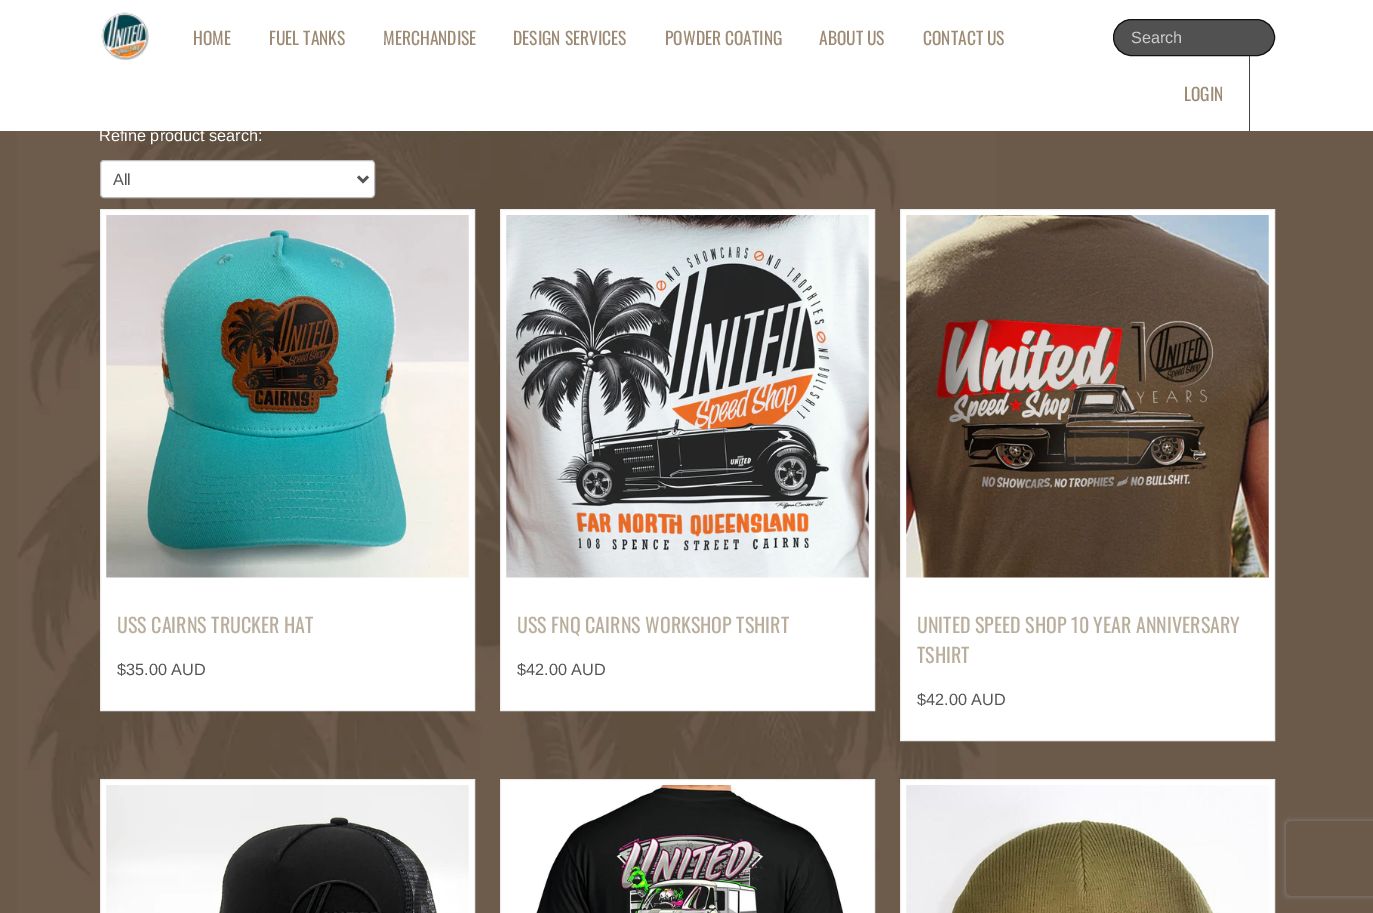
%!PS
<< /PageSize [1373 913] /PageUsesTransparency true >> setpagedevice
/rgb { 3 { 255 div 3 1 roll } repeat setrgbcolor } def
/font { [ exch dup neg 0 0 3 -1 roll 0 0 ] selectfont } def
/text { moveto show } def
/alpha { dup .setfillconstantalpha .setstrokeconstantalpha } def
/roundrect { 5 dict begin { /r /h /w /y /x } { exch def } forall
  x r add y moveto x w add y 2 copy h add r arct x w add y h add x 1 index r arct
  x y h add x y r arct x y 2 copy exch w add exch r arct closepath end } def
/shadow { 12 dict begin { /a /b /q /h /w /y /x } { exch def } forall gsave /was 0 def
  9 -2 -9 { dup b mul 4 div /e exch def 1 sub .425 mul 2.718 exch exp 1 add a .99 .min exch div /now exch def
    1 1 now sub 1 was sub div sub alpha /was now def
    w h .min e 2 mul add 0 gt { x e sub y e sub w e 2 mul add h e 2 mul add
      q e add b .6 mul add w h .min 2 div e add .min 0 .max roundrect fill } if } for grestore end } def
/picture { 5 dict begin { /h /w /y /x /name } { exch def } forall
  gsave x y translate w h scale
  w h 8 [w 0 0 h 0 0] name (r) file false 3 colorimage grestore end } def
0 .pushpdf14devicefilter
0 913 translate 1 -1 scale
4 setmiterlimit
107 90 74 rgb
0 0 1373 913 rectfill
(img_01.rgb) 17 131 979 782 picture
255 255 255 rgb
0 0 1373 131 rectfill
(img_02.rgb) 101 12 48 49 picture
81 81 81 rgb
1113.5 19.5 161 36 18 roundrect gsave fill grestore
17 17 17 rgb
stroke
68 68 68 rgb
1249 56 1 75 rectfill
255 255 255 rgb
100.5 160.5 274 37 3.5 roundrect gsave fill grestore
187 187 187 rgb
stroke
85 85 85 rgb
2.5 setlinewidth
358 176.5 moveto 5 5 rlineto 5 -5 rlineto stroke
255 255 255 rgb
100.5 209.5 moveto 374 0 rlineto 0 501 rlineto -374 0 rlineto closepath gsave fill grestore
238 238 238 rgb
1 setlinewidth
stroke
(img_03.rgb) 106 215 363 363 picture
255 255 255 rgb
500.5 209.5 moveto 374 0 rlineto 0 501 rlineto -374 0 rlineto closepath gsave fill grestore
238 238 238 rgb
stroke
(img_04.rgb) 506 215 363 363 picture
255 255 255 rgb
900.5 209.5 moveto 374 0 rlineto 0 531 rlineto -374 0 rlineto closepath gsave fill grestore
238 238 238 rgb
stroke
(img_05.rgb) 906 215 363 363 picture
255 255 255 rgb
100.5 779.5 moveto 374 0 rlineto 0 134 rlineto -374 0 rlineto closepath gsave fill grestore
238 238 238 rgb
stroke
(img_06.rgb) 106 785 363 128 picture
255 255 255 rgb
500.5 779.5 moveto 374 0 rlineto 0 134 rlineto -374 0 rlineto closepath gsave fill grestore
238 238 238 rgb
stroke
(img_07.rgb) 536 785 308 128 picture
255 255 255 rgb
900.5 779.5 moveto 374 0 rlineto 0 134 rlineto -374 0 rlineto closepath gsave fill grestore
238 238 238 rgb
stroke
(img_08.rgb) 906 785 363 128 picture
gsave
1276 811 moveto 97 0 rlineto 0 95 rlineto -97 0 rlineto closepath 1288.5 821 moveto 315 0 rlineto 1.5 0 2.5 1 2.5 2.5 rcurveto 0 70 rlineto 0 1.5 -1 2.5 -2.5 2.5 rcurveto -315 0 rlineto -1.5 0 -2.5 -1 -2.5 -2.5 rcurveto 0 -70 rlineto 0 -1.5 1 -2.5 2.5 -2.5 rcurveto closepath eoclip newpath
128 128 128 rgb
1286 821 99 75 2.5 3 1 shadow
grestore
/Oswald-Regular 17.5 font
158 139 118 rgb
(HOME) 193 45 text
(FUEL TANKS) 269 45 text
(MERCHANDISE) 383 45 text
(DESIGN SERVICES) 513 45 text
(POWDER COATING) 665 45 text
(ABOUT US) 819 45 text
(CONTACT US) 923 45 text
/LiberationSans-Regular 16.25 font
204 204 204 rgb
(Search) 1131 43 text
/Oswald-Regular 17.5 font
158 139 118 rgb
(LOGIN) 1184 101 text
/LiberationSans-Regular 16.25 font
255 255 255 rgb
(Refine product search:) 99 141 text
85 85 85 rgb
(All) 113 185 text
/Oswald-Regular 20 font
185 173 156 rgb
(USS CAIRNS TRUCKER HAT) 117 633 text
/LiberationSans-Regular 16.25 font
85 85 85 rgb
($35.00 AUD) 117 675 text
/Oswald-Regular 20 font
185 173 156 rgb
(USS FNQ CAIRNS WORKSHOP TSHIRT) 517 633 text
/LiberationSans-Regular 16.25 font
85 85 85 rgb
($42.00 AUD) 517 675 text
/Oswald-Regular 20 font
185 173 156 rgb
(UNITED SPEED SHOP 10 YEAR ANNIVERSARY) 917 633 text
(TSHIRT) 917 663 text
/LiberationSans-Regular 16.25 font
85 85 85 rgb
($42.00 AUD) 917 705 text
.poppdf14devicefilter showpage
